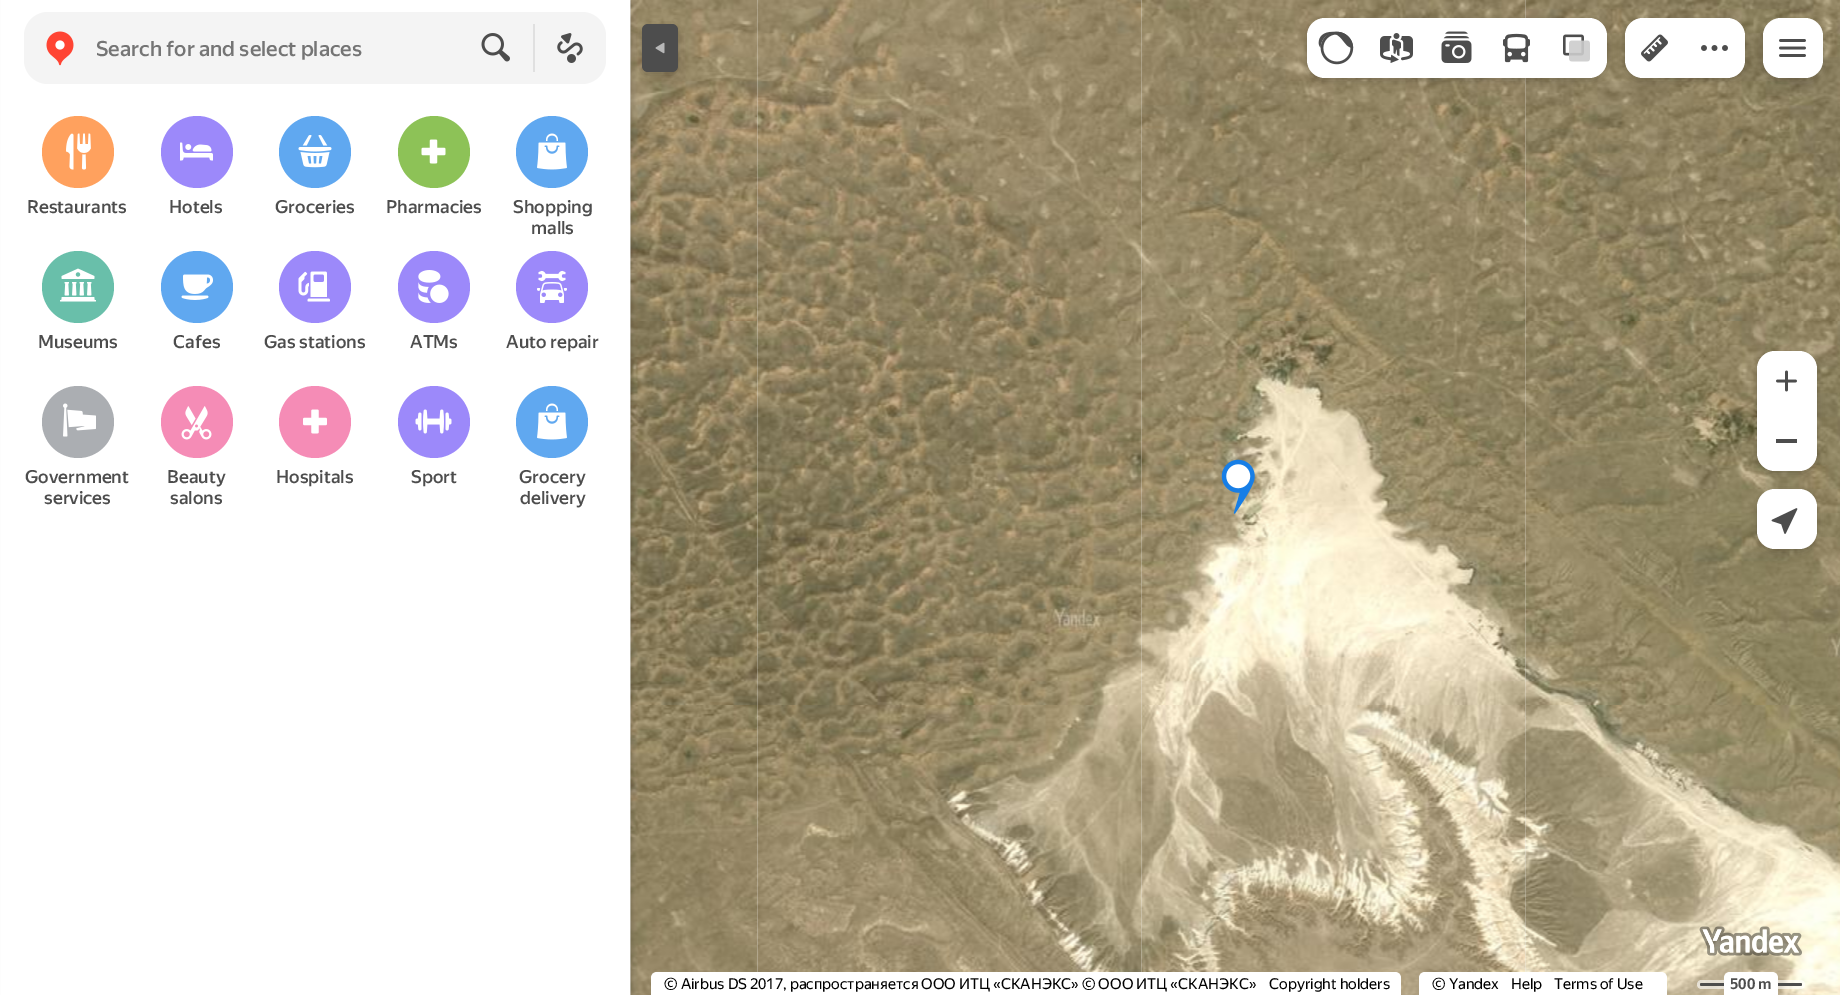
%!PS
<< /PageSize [1840 995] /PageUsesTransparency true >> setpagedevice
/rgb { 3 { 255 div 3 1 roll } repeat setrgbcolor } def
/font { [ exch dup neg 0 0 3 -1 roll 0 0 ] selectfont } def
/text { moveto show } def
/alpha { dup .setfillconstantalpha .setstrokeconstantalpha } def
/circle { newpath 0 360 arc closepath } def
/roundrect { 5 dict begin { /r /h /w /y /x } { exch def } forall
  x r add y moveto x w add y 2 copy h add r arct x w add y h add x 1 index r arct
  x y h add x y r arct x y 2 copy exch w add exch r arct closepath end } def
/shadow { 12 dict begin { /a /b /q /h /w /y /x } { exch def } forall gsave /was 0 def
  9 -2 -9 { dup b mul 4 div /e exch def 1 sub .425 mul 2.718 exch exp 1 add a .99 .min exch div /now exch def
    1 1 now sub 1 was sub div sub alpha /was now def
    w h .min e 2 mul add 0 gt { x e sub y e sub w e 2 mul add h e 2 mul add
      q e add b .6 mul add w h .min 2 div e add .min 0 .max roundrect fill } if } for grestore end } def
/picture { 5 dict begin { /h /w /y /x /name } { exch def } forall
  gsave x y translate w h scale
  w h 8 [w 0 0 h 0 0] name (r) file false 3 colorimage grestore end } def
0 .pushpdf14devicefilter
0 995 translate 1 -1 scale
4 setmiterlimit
255 255 255 rgb
0 0 1840 995 rectfill
(img_01.rgb) 630 0 896 995 picture
(img_02.rgb) 630 0 128 321 picture
(img_03.rgb) 757 0 385 321 picture
(img_04.rgb) 1141 0 385 321 picture
(img_05.rgb) 1525 0 315 321 picture
(img_06.rgb) 630 321 128 384 picture
(img_07.rgb) 757 321 385 384 picture
(img_08.rgb) 1141 321 385 384 picture
(img_09.rgb) 1525 321 315 384 picture
(img_10.rgb) 630 705 128 290 picture
(img_11.rgb) 757 705 385 267 picture
(img_12.rgb) 1141 705 385 290 picture
(img_13.rgb) 1525 705 315 290 picture
(img_14.rgb) 1221 459 34 55 picture
0 0 0 rgb
3 0 630 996 0 1.5 0.1 shadow
642 27 36 48 6 4.5 0.2 shadow
255 255 255 rgb
1 0 629 995 rectfill
244 244 244 rgb
24 12 582 72 24 roundrect fill
(img_15.rgb) 46 31 28 35 picture
(img_16.rgb) 481 33 29 29 picture
224 224 224 rgb
533 24 2 48 rectfill
(img_17.rgb) 557 33 26 30 picture
0 0 0 rgb
1307 21 300 60 18 4.5 0.2 shadow
255 255 255 rgb
1325 18 moveto 42 0 rlineto 0 60 rlineto -42 0 rlineto -10 0 -18 -8 -18 -18 rcurveto 0 -24 rlineto 0 -10 8 -18 18 -18 rcurveto closepath fill
(img_18.rgb) 1318 31 36 34 picture
1367 18 180 60 rectfill
(img_19.rgb) 1380 33 33 30 picture
1547 18 moveto 42 0 rlineto 10 0 18 8 18 18 rcurveto 0 24 rlineto 0 10 -8 18 -18 18 rcurveto -42 0 rlineto closepath fill
(img_20.rgb) 1563 34 27 28 picture
(img_21.rgb) 1441 31 31 32 picture
(img_22.rgb) 1503 33 27 30 picture
0 0 0 rgb
1625 21 120 60 18 4.5 0.2 shadow
255 255 255 rgb
1643 18 moveto 42 0 rlineto 0 60 rlineto -42 0 rlineto -10 0 -18 -8 -18 -18 rcurveto 0 -24 rlineto 0 -10 8 -18 18 -18 rcurveto closepath fill
(img_23.rgb) 1641 34 27 28 picture
1685 18 moveto 42 0 rlineto 10 0 18 8 18 18 rcurveto 0 24 rlineto 0 10 -8 18 -18 18 rcurveto -42 0 rlineto closepath fill
(img_24.rgb) 1701 45 27 6 picture
0 0 0 rgb
1763 21 60 60 18 4.5 0.2 shadow
255 255 255 rgb
1763 18 60 60 18 roundrect fill
(img_25.rgb) 1779 39 27 18 picture
0 0 0 rgb
1757 354 60 120 18 4.5 0.2 shadow
255 255 255 rgb
1775 351 moveto 24 0 rlineto 10 0 18 8 18 18 rcurveto 0 42 rlineto -60 0 rlineto 0 -42 rlineto 0 -10 8 -18 18 -18 rcurveto closepath fill
(img_26.rgb) 1776 370 21 22 picture
1757 411 moveto 60 0 rlineto 0 42 rlineto 0 10 -8 18 -18 18 rcurveto -24 0 rlineto -10 0 -18 -8 -18 -18 rcurveto closepath fill
77 77 77 rgb
1776 439 21 4 rectfill
0 0 0 rgb
1757 492 60 60 18 4.5 0.2 shadow
255 255 255 rgb
1757 489 60 60 18 roundrect fill
(img_27.rgb) 1771 508 27 26 picture
77 77 77 rgb
642 24 36 48 6 roundrect fill
(img_28.rgb) 655 42 10 12 picture
255 161 94 rgb
78 152 36 circle fill
(img_29.rgb) 66 133 25 37 picture
156 137 250 rgb
197 152 36 circle fill
(img_30.rgb) 180 142 33 19 picture
96 168 240 rgb
315 152 36 circle fill
(img_31.rgb) 298 135 34 33 picture
141 194 87 rgb
434 152 36 circle fill
(img_32.rgb) 421 139 25 25 picture
96 168 240 rgb
552 152 36 circle fill
(img_33.rgb) 537 133 30 37 picture
105 191 170 rgb
78 287 36 circle fill
(img_34.rgb) 60 268 36 34 picture
96 168 240 rgb
197 287 36 circle fill
(img_35.rgb) 181 274 32 26 picture
156 137 250 rgb
315 287 36 circle fill
(img_36.rgb) 298 271 32 31 picture
434 287 36 circle fill
(img_37.rgb) 418 270 31 33 picture
552 287 36 circle fill
(img_38.rgb) 537 270 30 33 picture
171 174 178 rgb
78 422 36 circle fill
(img_39.rgb) 63 403 33 34 picture
245 140 182 rgb
197 422 36 circle fill
(img_40.rgb) 181 406 31 34 picture
315 422 36 circle fill
(img_41.rgb) 303 409 24 25 picture
156 137 250 rgb
434 422 36 circle fill
(img_42.rgb) 415 409 37 25 picture
96 168 240 rgb
552 422 36 circle fill
(img_33.rgb) 537 403 30 37 picture
(img_43.rgb) 1699 926 103 30 picture
255 255 255 rgb
657 972 moveto 738 0 rlineto 3.5 0 6 2.5 6 6 rcurveto 0 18 rlineto -750 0 rlineto 0 -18 rlineto 0 -3.5 2.5 -6 6 -6 rcurveto closepath fill
1425 972 moveto 236 0 rlineto 3.5 0 6 2.5 6 6 rcurveto 0 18 rlineto -248 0 rlineto 0 -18 rlineto 0 -3.5 2.5 -6 6 -6 rcurveto closepath fill
0.6 alpha
1697 980 108 9 4.5 roundrect fill
1 alpha
77 77 77 rgb
1700 983 102 3 1.5 roundrect fill
255 255 255 rgb
1730 972 moveto 42 0 rlineto 3.5 0 6 2.5 6 6 rcurveto 0 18 rlineto -54 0 rlineto 0 -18 rlineto 0 -3.5 2.5 -6 6 -6 rcurveto closepath fill
/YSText-Medium 21 font
117 117 117 rgb
(Search for and select places) 96 56 text
/YSText-Medium 18 font
77 77 77 rgb
(Restaurants) 27 213 text
(Hotels) 169 213 text
(Groceries) 275 213 text
(Pharmacies) 386 213 text
(Shopping) 513 213 text
(malls) 531 234 text
(Museums) 38 348 text
(Cafes) 173 348 text
(Gas stations) 264 348 text
(ATMs) 410 348 text
(Auto repair) 506 348 text
(Government) 25 483 text
(services) 44 504 text
(Beauty) 167 483 text
(salons) 170 504 text
(Hospitals) 276 483 text
(Sport) 411 483 text
(Grocery) 519 483 text
(delivery) 520 504 text
/YSText-Regular 15 font
0 0 0 rgb
(© Airbus DS 2017, распространяется) 664 989 text
(ООО ИТЦ «СКАНЭКС» © ООО ИТЦ «СКАНЭКС») 921 989 text
(Copyright holders) 1269 989 text
(© Yandex) 1432 989 text
(Help) 1511 989 text
(Terms of Use) 1554 989 text
/YSText-Bold 15 font
77 77 77 rgb
(500 m) 1730 989 text
.poppdf14devicefilter showpage
